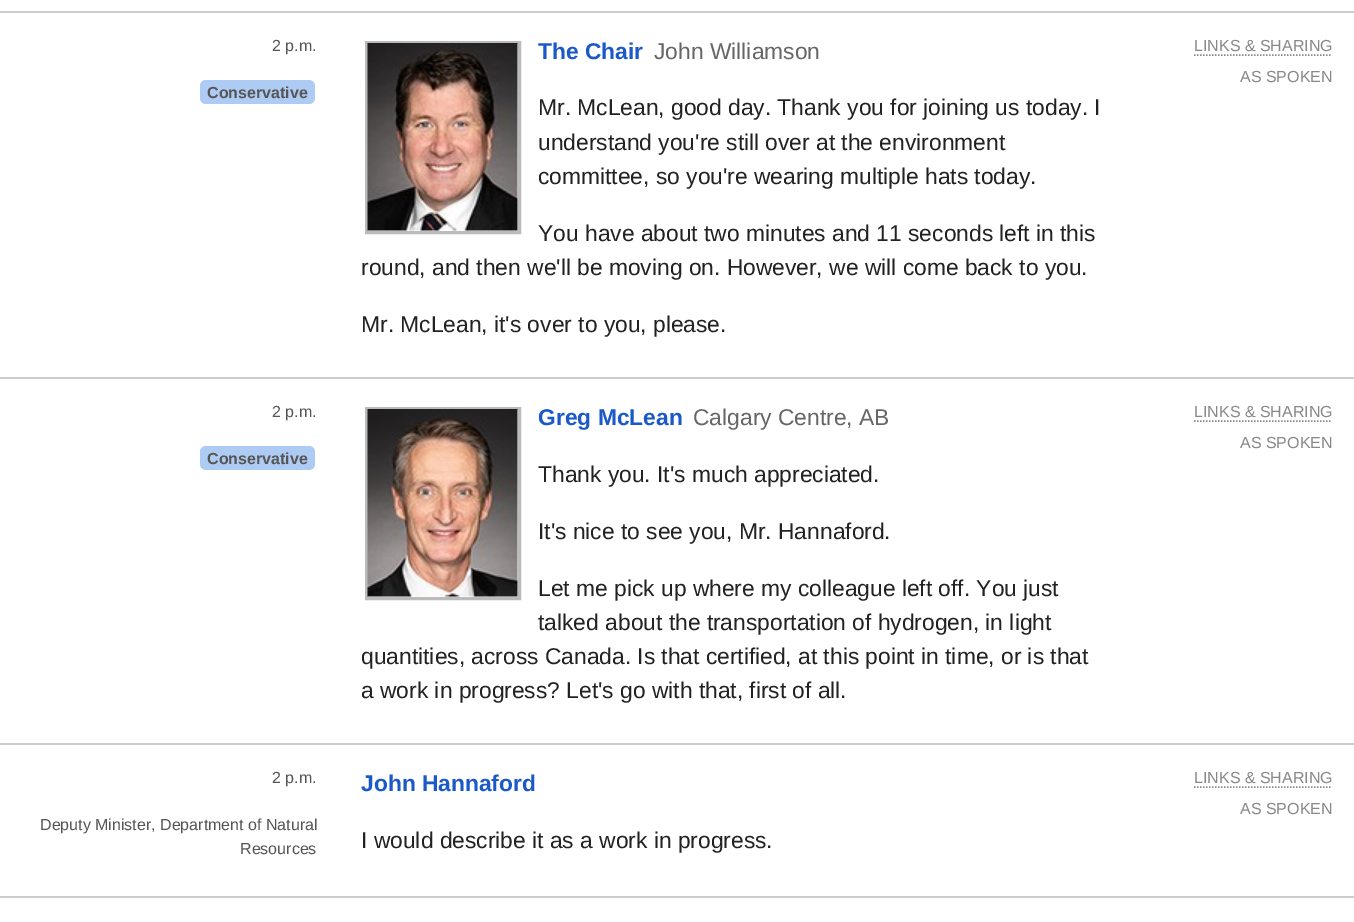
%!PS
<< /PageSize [1354 922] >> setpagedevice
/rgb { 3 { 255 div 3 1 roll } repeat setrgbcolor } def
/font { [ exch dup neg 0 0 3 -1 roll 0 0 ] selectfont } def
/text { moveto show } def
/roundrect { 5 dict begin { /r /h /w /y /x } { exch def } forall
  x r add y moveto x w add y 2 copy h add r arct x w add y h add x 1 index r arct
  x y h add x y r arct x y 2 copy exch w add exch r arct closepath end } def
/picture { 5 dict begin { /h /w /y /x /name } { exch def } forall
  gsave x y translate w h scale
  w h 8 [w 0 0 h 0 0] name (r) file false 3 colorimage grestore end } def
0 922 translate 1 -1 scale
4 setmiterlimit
255 255 255 rgb
0 0 1354 922 rectfill
204 204 204 rgb
0 11 1354 2 rectfill
174 203 244 rgb
200 80 115 24 6 roundrect fill
187 187 187 rgb
3 setlinewidth
366.5 42.5 153 190 rectstroke
(img_01.rgb) 367 43 151 188 picture
136 136 136 rgb
1.5 setlinewidth
[1.5 1.5] 0 setdash
1194 55 moveto 138 0 rlineto stroke
204 204 204 rgb
0 377 1354 2 rectfill
174 203 244 rgb
200 446 115 24 6 roundrect fill
187 187 187 rgb
3 setlinewidth
[] 0 setdash
366.5 408.5 153 190 rectstroke
(img_02.rgb) 367 409 151 188 picture
136 136 136 rgb
1.5 setlinewidth
[1.5 1.5] 0 setdash
1194 421 moveto 138 0 rlineto stroke
204 204 204 rgb
0 743 1354 2 rectfill
136 136 136 rgb
1194 787 moveto 138 0 rlineto stroke
204 204 204 rgb
0 896 1354 2 rectfill
/LiberationSans-Regular 16 font
85 85 85 rgb
(2 p.m.) 272 51 text
/LiberationSans-Bold 16 font
(Conservative) 207 98 text
/LiberationSans-Bold 22.8 font
26 89 199 rgb
(The Chair) 538 59 text
/LiberationSans-Regular 22.8 font
102 102 102 rgb
(John Williamson) 654 59 text
34 34 34 rgb
(Mr. McLean, good day. Thank you for joining us today. I) 538 115 text
(understand you're still over at the environment) 538 150 text
(committee, so you're wearing multiple hats today.) 538 184 text
(You have about two minutes and 11 seconds left in this) 538 241 text
(round, and then we'll be moving on. However, we will come back to you.) 361 275 text
(Mr. McLean, it's over to you, please.) 361 332 text
/LiberationSans-Regular 16 font
136 136 136 rgb
(LINKS & SHARING) 1194 51 text
(AS SPOKEN) 1240 82 text
85 85 85 rgb
(2 p.m.) 272 417 text
/LiberationSans-Bold 16 font
(Conservative) 207 464 text
/LiberationSans-Bold 22.8 font
26 89 199 rgb
(Greg McLean) 538 425 text
/LiberationSans-Regular 22.8 font
102 102 102 rgb
(Calgary Centre, AB) 693 425 text
34 34 34 rgb
(Thank you. It's much appreciated.) 538 482 text
(It's nice to see you, Mr. Hannaford.) 538 539 text
(Let me pick up where my colleague left off. You just) 538 596 text
(talked about the transportation of hydrogen, in light) 538 630 text
(quantities, across Canada. Is that certified, at this point in time, or is that) 361 664 text
(a work in progress? Let's go with that, first of all.) 361 698 text
/LiberationSans-Regular 16 font
136 136 136 rgb
(LINKS & SHARING) 1194 417 text
(AS SPOKEN) 1240 448 text
85 85 85 rgb
(2 p.m.) 272 783 text
(Deputy Minister, Department of Natural) 40 830 text
(Resources) 240 854 text
/LiberationSans-Bold 22.8 font
26 89 199 rgb
(John Hannaford) 361 791 text
/LiberationSans-Regular 22.8 font
34 34 34 rgb
(I would describe it as a work in progress.) 361 848 text
/LiberationSans-Regular 16 font
136 136 136 rgb
(LINKS & SHARING) 1194 783 text
(AS SPOKEN) 1240 814 text
showpage
